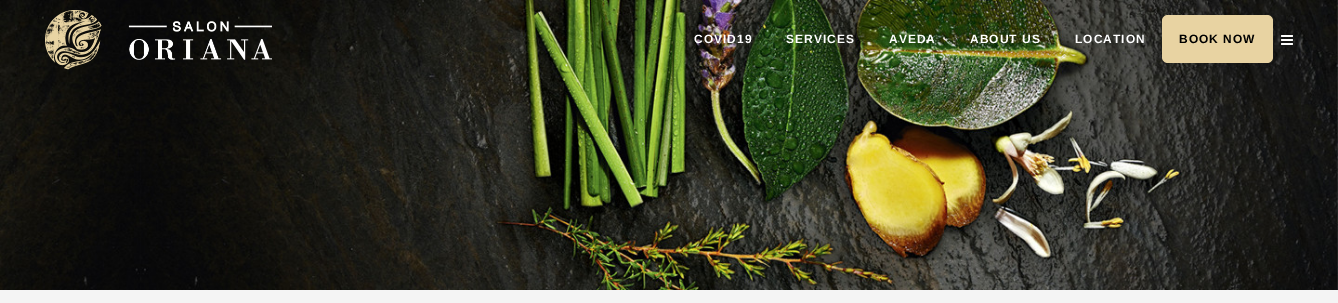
%!PS
<< /PageSize [1338 303] >> setpagedevice
/rgb { 3 { 255 div 3 1 roll } repeat setrgbcolor } def
/font { [ exch dup neg 0 0 3 -1 roll 0 0 ] selectfont } def
/roundrect { 5 dict begin { /r /h /w /y /x } { exch def } forall
  x r add y moveto x w add y 2 copy h add r arct x w add y h add x 1 index r arct
  x y h add x y r arct x y 2 copy exch w add exch r arct closepath end } def
/picture { 5 dict begin { /h /w /y /x /name } { exch def } forall
  gsave x y translate w h scale
  w h 8 [w 0 0 h 0 0] name (r) file false 3 colorimage grestore end } def
0 303 translate 1 -1 scale
4 setmiterlimit
244 244 244 rgb
0 0 1338 303 rectfill
(img_01.rgb) 0 0 1338 290 picture
(img_02.rgb) 45 10 227 60 picture
232 211 162 rgb
1162 15 111 48 6 roundrect fill
(img_03.rgb) 1281 35 12 10 picture
/LiberationSans-Bold 12 font
255 255 255 rgb
694 43 moveto 1 0 (COVID19) ashow
786 43 moveto 1 0 (SERVICES) ashow
889 43 moveto 1 0 (AVEDA) ashow
970 43 moveto 1 0 (ABOUT US) ashow
1075 43 moveto 1 0 (LOCATION) ashow
0 0 0 rgb
1179 43 moveto 1 0 (BOOK NOW) ashow
showpage
